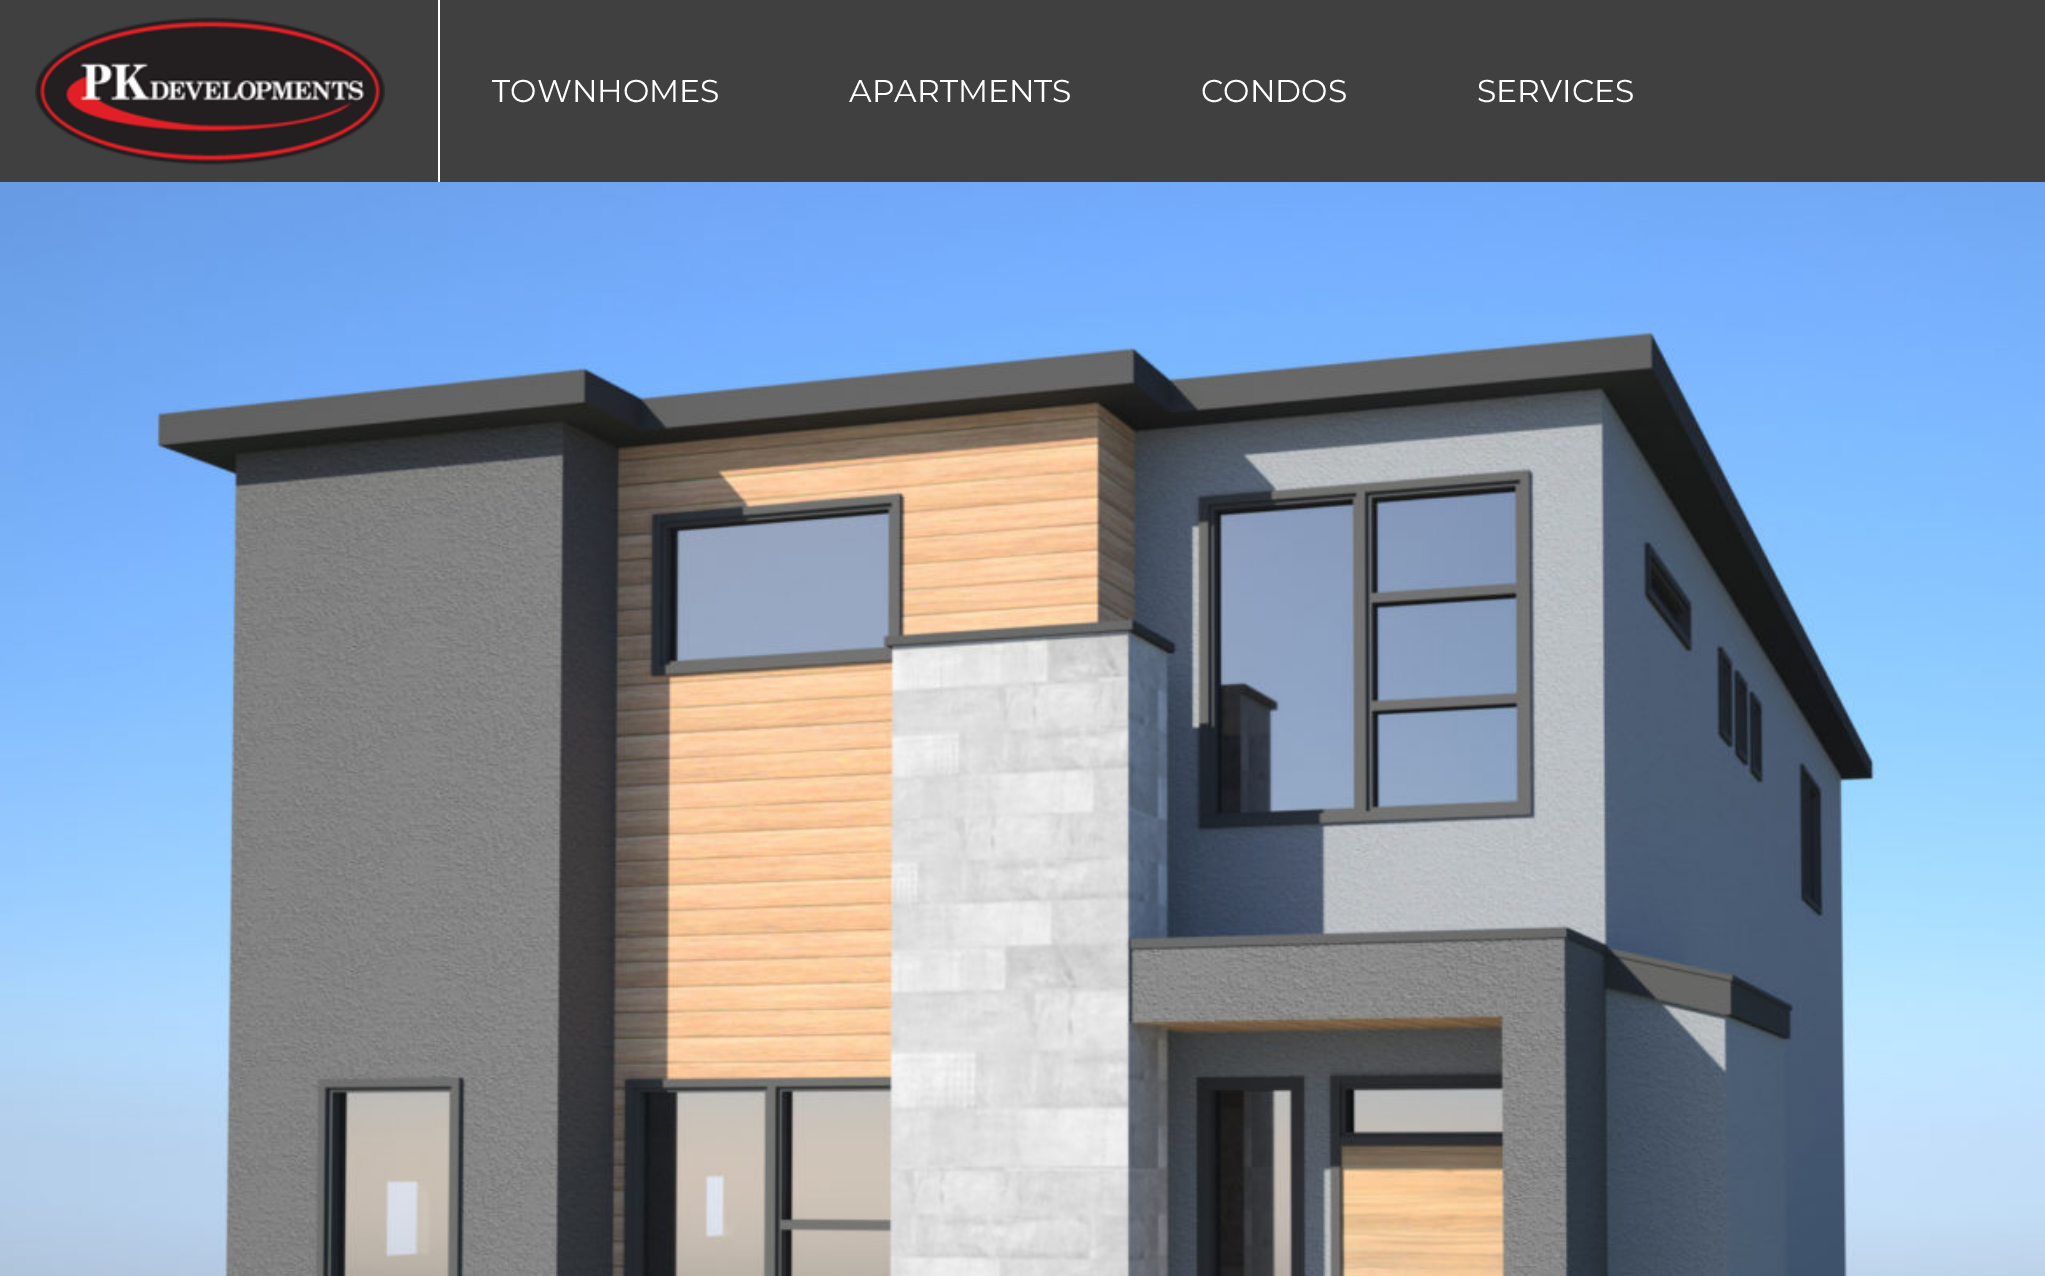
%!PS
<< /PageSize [2045 1276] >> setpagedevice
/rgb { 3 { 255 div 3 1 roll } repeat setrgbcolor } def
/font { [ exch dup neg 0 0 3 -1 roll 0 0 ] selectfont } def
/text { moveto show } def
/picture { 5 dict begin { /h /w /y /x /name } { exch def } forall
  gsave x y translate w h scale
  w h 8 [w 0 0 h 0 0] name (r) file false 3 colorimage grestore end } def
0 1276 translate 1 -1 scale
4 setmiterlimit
255 255 255 rgb
0 0 2045 1276 rectfill
64 64 64 rgb
0 0 2045 182 rectfill
255 255 255 rgb
438 0 2 182 rectfill
(img_01.rgb) 35 17 350 148 picture
(img_02.rgb) 0 182 2045 1094 picture
/Montserrat-Regular 31.5 font
(TOWNHOMES) 492 102 text
(APARTMENTS) 849 102 text
(CONDOS) 1201 102 text
(SERVICES) 1477 102 text
showpage
